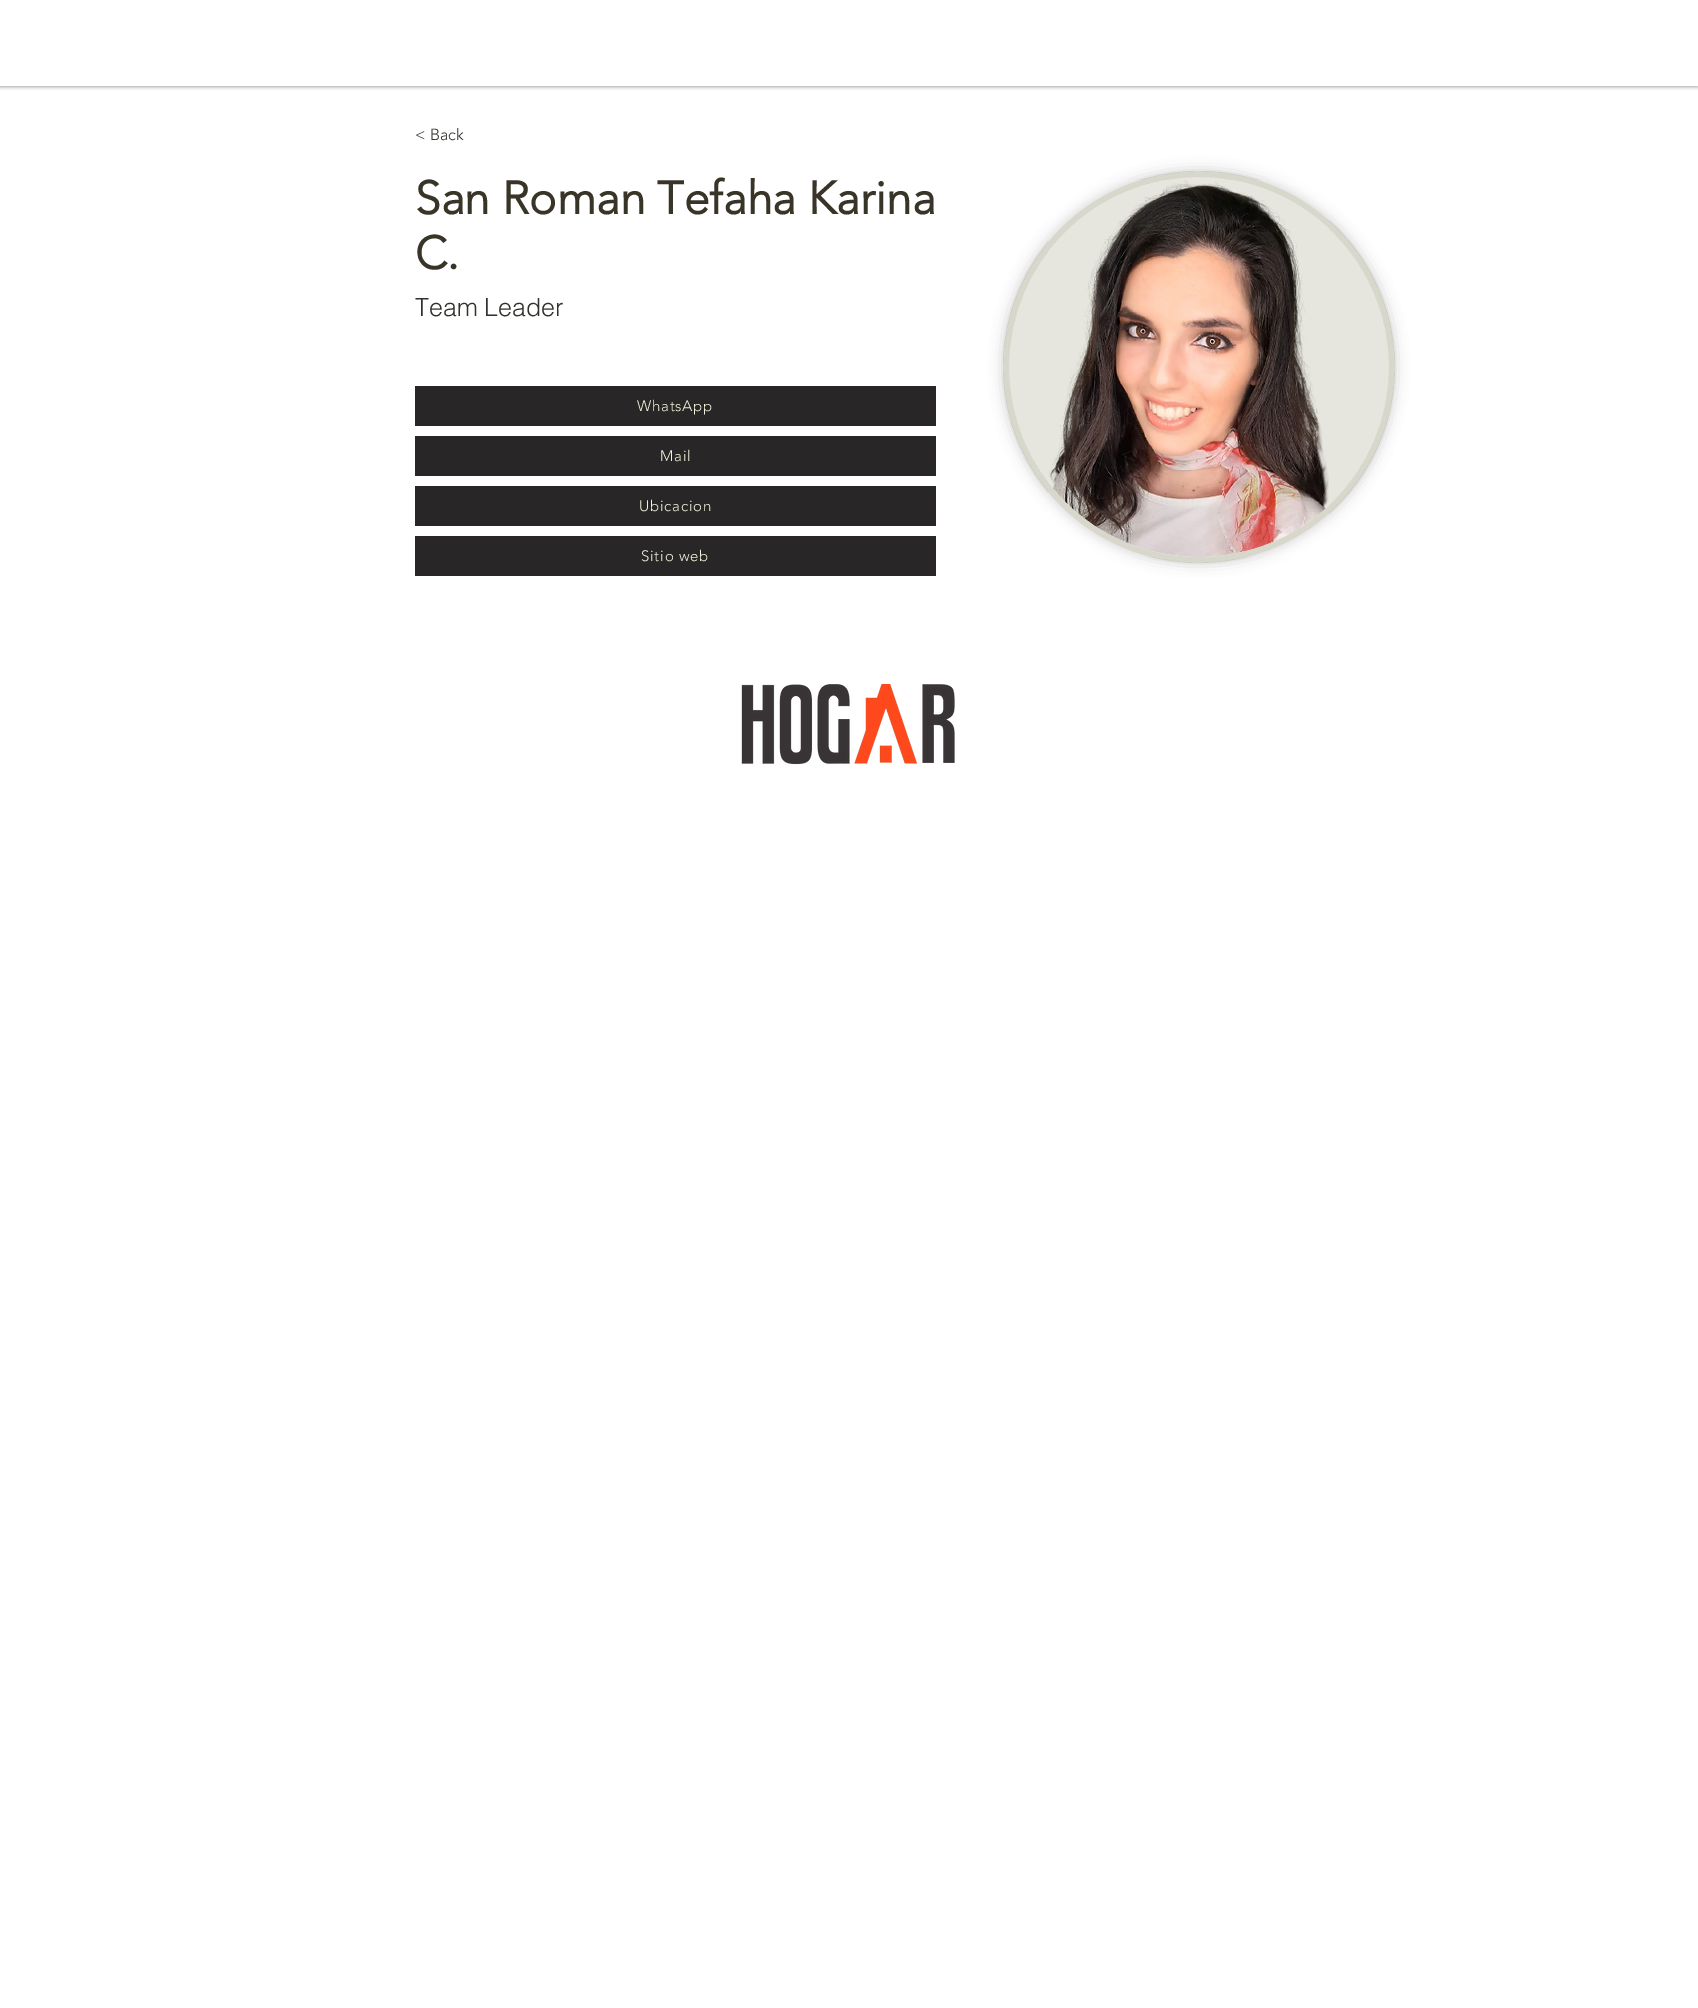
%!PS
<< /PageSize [1698 2008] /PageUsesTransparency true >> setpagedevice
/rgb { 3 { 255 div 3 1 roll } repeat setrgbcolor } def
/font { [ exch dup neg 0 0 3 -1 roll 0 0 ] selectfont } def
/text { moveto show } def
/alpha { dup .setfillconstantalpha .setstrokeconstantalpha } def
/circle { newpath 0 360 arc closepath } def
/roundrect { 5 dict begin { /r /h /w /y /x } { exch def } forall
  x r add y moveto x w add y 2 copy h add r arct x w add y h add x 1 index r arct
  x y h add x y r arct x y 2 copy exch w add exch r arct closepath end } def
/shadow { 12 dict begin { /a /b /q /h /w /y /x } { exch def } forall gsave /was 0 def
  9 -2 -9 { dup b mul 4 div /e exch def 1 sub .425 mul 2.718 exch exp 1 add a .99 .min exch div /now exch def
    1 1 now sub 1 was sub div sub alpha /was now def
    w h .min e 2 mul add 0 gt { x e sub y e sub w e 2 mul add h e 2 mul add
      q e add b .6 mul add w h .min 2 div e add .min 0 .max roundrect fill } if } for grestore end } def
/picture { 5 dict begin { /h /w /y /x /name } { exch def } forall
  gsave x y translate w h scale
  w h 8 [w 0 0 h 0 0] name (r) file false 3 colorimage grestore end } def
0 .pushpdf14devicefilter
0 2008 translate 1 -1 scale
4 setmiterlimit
255 255 255 rgb
0 0 1698 2008 rectfill
gsave
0 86 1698 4 rectclip
0 0 0 rgb
0 0 1698 86 0 2.5 0.5 shadow
grestore
40 38 38 rgb
415 386 521 40 rectfill
415 436 521 40 rectfill
415 486 521 40 rectfill
415 536 521 40 rectfill
gsave
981 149 moveto 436 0 rlineto 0 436 rlineto -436 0 rlineto closepath 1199 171 moveto 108 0 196 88 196 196 rcurveto 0 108 -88 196 -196 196 rcurveto -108 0 -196 -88 -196 -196 rcurveto 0 -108 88 -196 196 -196 rcurveto closepath eoclip newpath
0 0 0 rgb
1003 171 392 392 196 7 0.2 shadow
grestore
0.41 alpha
194 194 176 rgb
1199 367 196 circle fill
6 setlinewidth
1199 367 193 circle stroke
1 alpha
(img_01.rgb) 1048 180 281 377 picture
(img_02.rgb) 741 684 214 81 picture
/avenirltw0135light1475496-Light 16 font
49 48 44 rgb
(< Back) 415 140 text
/avenirltw0135light1475496-Bold 46 font
56 52 39 rgb
(San Roman Tefaha Karina) 415 214 text
(C.) 415 269 text
/helvetica-Light 25 font
49 48 44 rgb
(Team Leader) 415 316 text
/avenirltw0135light1475496-Light 15 font
243 242 220 rgb
637 411 moveto 0.75 0 (WhatsApp) ashow
660 461 moveto 0.75 0 (Mail) ashow
639 511 moveto 0.75 0 (Ubicacion) ashow
641 561 moveto 0.75 0 (Sitio web) ashow
.poppdf14devicefilter showpage
